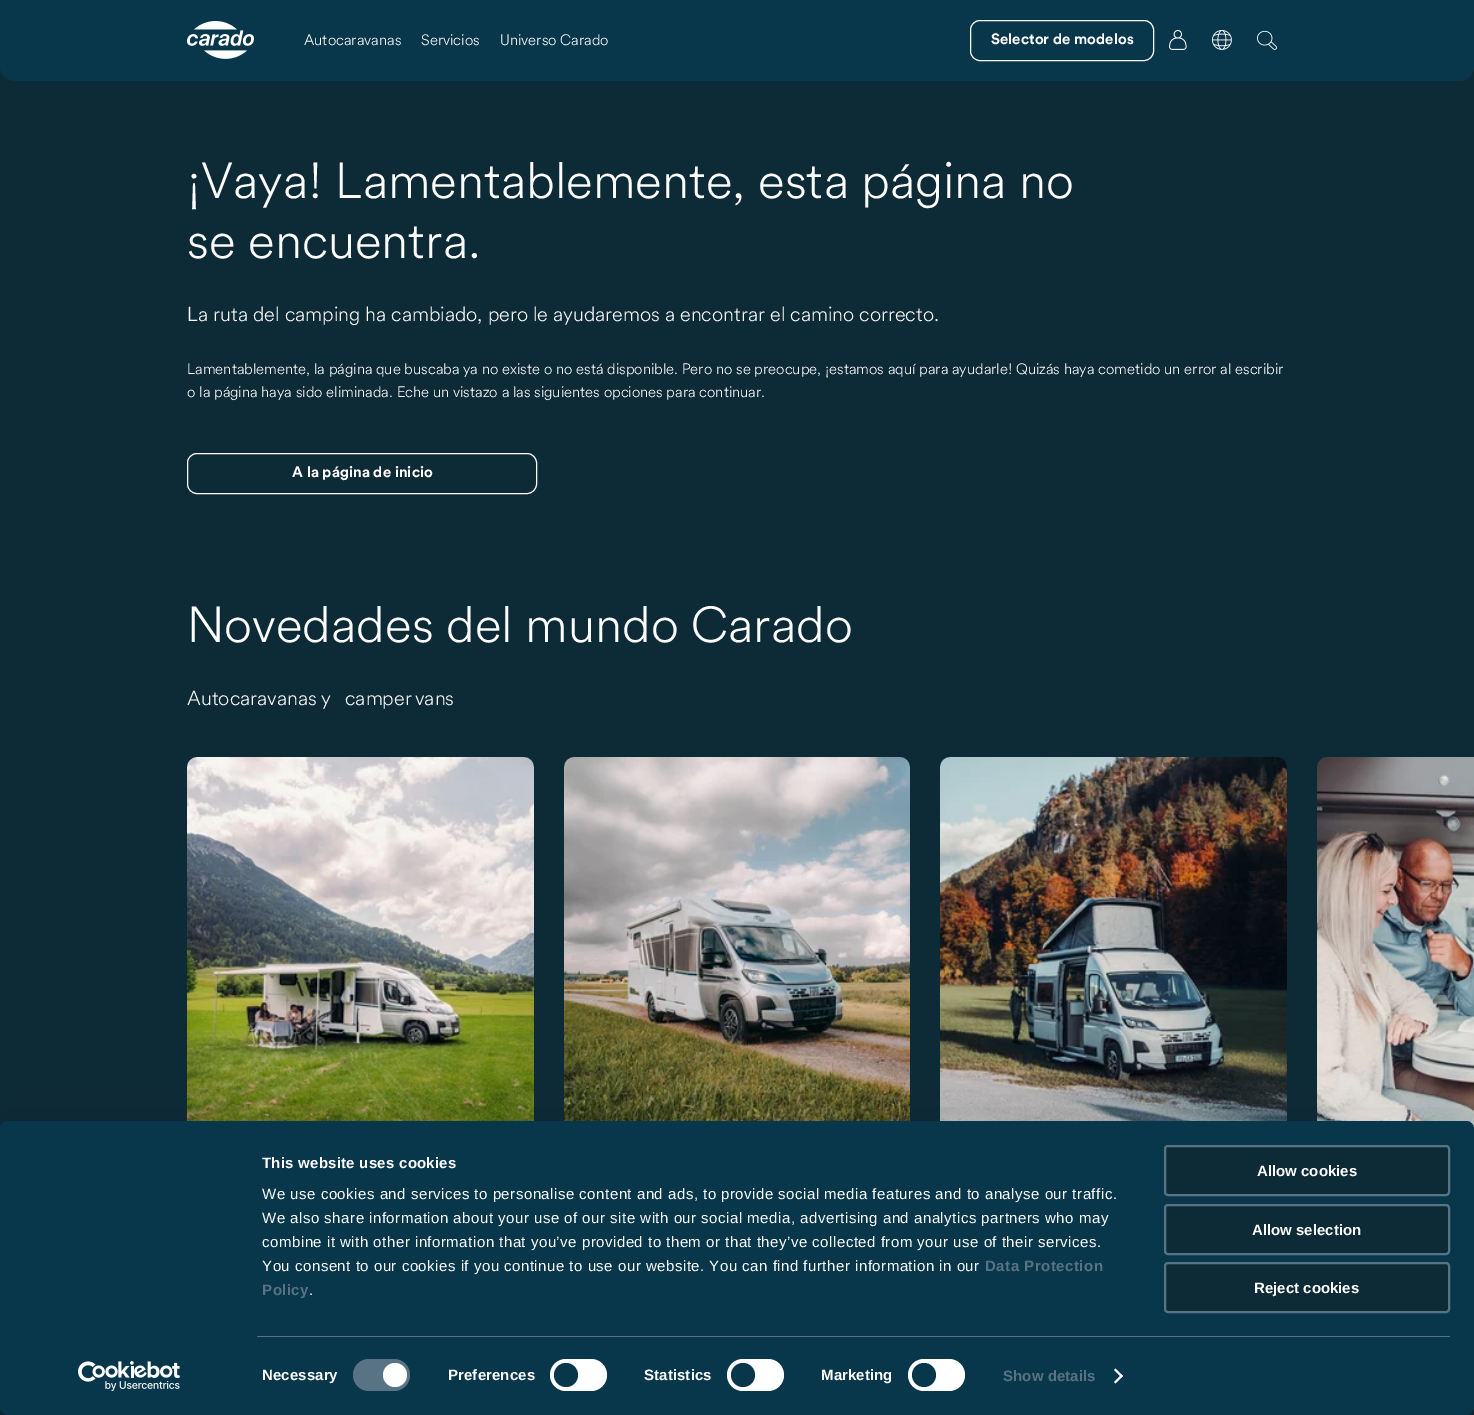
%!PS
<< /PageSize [1474 1415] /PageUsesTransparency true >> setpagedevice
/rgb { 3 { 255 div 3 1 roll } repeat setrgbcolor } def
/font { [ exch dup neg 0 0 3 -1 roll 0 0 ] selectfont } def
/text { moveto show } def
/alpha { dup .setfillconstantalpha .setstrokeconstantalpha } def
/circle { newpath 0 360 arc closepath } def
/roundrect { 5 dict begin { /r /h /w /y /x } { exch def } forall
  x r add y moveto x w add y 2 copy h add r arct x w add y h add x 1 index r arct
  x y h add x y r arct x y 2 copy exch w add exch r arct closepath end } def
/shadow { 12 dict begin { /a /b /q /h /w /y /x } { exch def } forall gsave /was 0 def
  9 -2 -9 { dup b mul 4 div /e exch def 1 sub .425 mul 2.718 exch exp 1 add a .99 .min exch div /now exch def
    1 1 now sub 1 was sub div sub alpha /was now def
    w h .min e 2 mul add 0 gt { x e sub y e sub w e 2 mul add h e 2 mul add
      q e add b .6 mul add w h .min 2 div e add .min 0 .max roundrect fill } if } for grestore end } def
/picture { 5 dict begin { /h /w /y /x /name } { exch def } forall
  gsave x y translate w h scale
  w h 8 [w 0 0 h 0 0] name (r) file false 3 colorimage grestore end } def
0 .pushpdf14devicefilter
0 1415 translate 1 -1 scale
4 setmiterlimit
13 42 55 rgb
0 0 1474 1415 rectfill
8 54 75 rgb
0 0 moveto 1474 0 rlineto 0 66 rlineto 0 8.5 -6.5 15 -15 15 rcurveto -1444 0 rlineto -8.5 0 -15 -6.5 -15 -15 rcurveto closepath fill
(img_01.rgb) 187 21 67 38 picture
255 255 255 rgb
970.5 20.5 183 40 9.5 roundrect stroke
(img_02.rgb) 1169 30 18 20 picture
(img_03.rgb) 1212 30 20 20 picture
(img_04.rgb) 1257 30 20 20 picture
187.5 453.5 349 40 9.5 roundrect stroke
(img_05.rgb) 187 757 347 364 picture
(img_06.rgb) 564 757 346 364 picture
(img_07.rgb) 940 757 347 364 picture
(img_08.rgb) 1317 757 157 372 picture
0 0 0 rgb
0 1151 1474 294 8 35 0.3 shadow
8 54 75 rgb
0 1121 1474 294 8 roundrect fill
88 116 132 rgb
257 1336 1193 1 rectfill
353 1359 57 32 16 roundrect fill
255 255 255 rgb
395 1375 12 circle fill
550 1359 57 32 16 roundrect fill
8 54 75 rgb
566 1375 12 circle fill
255 255 255 rgb
727 1359 57 32 16 roundrect fill
8 54 75 rgb
743 1375 12 circle fill
255 255 255 rgb
908 1359 57 32 16 roundrect fill
8 54 75 rgb
924 1375 12 circle fill
255 255 255 rgb
1115.5 1368.5 moveto 7.5 7.5 rlineto -1.5 1.5 rlineto -7.5 -7.5 rlineto closepath fill
1121.5 1374.5 moveto 1.5 1.5 rlineto -7.5 7.5 rlineto -1.5 -1.5 rlineto closepath fill
13 42 55 rgb
1165 1146 284 49 3 roundrect gsave fill grestore
88 116 132 rgb
2 setlinewidth
stroke
13 42 55 rgb
1165 1205 284 49 3 roundrect gsave fill grestore
88 116 132 rgb
stroke
13 42 55 rgb
1165 1263 284 49 3 roundrect gsave fill grestore
88 116 132 rgb
stroke
(img_09.rgb) 78 1361 102 30 picture
/Circular-Light 15 font
255 255 255 rgb
(Autocaravanas) 304 45 text
(Servicios) 421 45 text
(Universo Carado) 500 45 text
/Circular-Bold 15 font
(Selector de modelos) 991 44 text
/Circular-Light 50 font
(¡Vaya! Lamentablemente, esta página no) 187 198 text
(se encuentra.) 187 258 text
/Circular-Light 20 font
(La ruta del camping ha cambiado, pero le ayudaremos a encontrar el camino correcto.) 187 321 text
/Circular-Light 15 font
(Lamentablemente, la página que buscaba ya no existe o no está disponible. Pero no se preocupe, ¡estamos aquí para ayudarle! Quizás haya cometido un error al escribir) 187 374 text
(o la página haya sido eliminada. Eche un vistazo a las siguientes opciones para continuar.) 187 397 text
/Circular-Bold 15 font
(A la página de inicio) 292 477 text
/Circular-Light 50 font
(Novedades del mundo Carado) 187 642 text
/Circular-Light 20 font
(Autocaravanas y) 187 705 text
(camper) 345 705 text
(vans) 415 705 text
/LiberationSans-Bold 15 font
262 1168 moveto 0.25 0 (This website uses cookies) ashow
/LiberationSans-Regular 15 font
262 1199 moveto 0.5 0 (We use cookies and services to personalise content and ads, to provide social media features and to analyse our traffic.) ashow
262 1223 moveto 0.5 0 (We also share information about your use of our site with our social media, advertising and analytics partners who may) ashow
262 1247 moveto 0.5 0 (combine it with other information that you’ve provided to them or that they’ve collected from your use of their services.) ashow
262 1271 moveto 0.5 0 (You consent to our cookies if you continue to use our website. You can find further information in our) ashow
/LiberationSans-Bold 15 font
88 116 132 rgb
985 1271 moveto 0.5 0 (Data Protection) ashow
262 1295 moveto 0.5 0 (Policy) ashow
/LiberationSans-Regular 15 font
255 255 255 rgb
309 1295 moveto 0.5 0 (.) ashow
/LiberationSans-Bold 15 font
262 1380 moveto 0.1 0 (Necessary) ashow
448 1380 moveto 0.1 0 (Preferences) ashow
644 1380 moveto 0.1 0 (Statistics) ashow
821 1380 moveto 0.1 0 (Marketing) ashow
88 116 132 rgb
1003 1381 moveto 0.1 0 (Show details) ashow
255 255 255 rgb
(Allow cookies) 1257 1176 text
(Allow selection) 1252 1235 text
(Reject cookies) 1254 1293 text
.poppdf14devicefilter showpage
